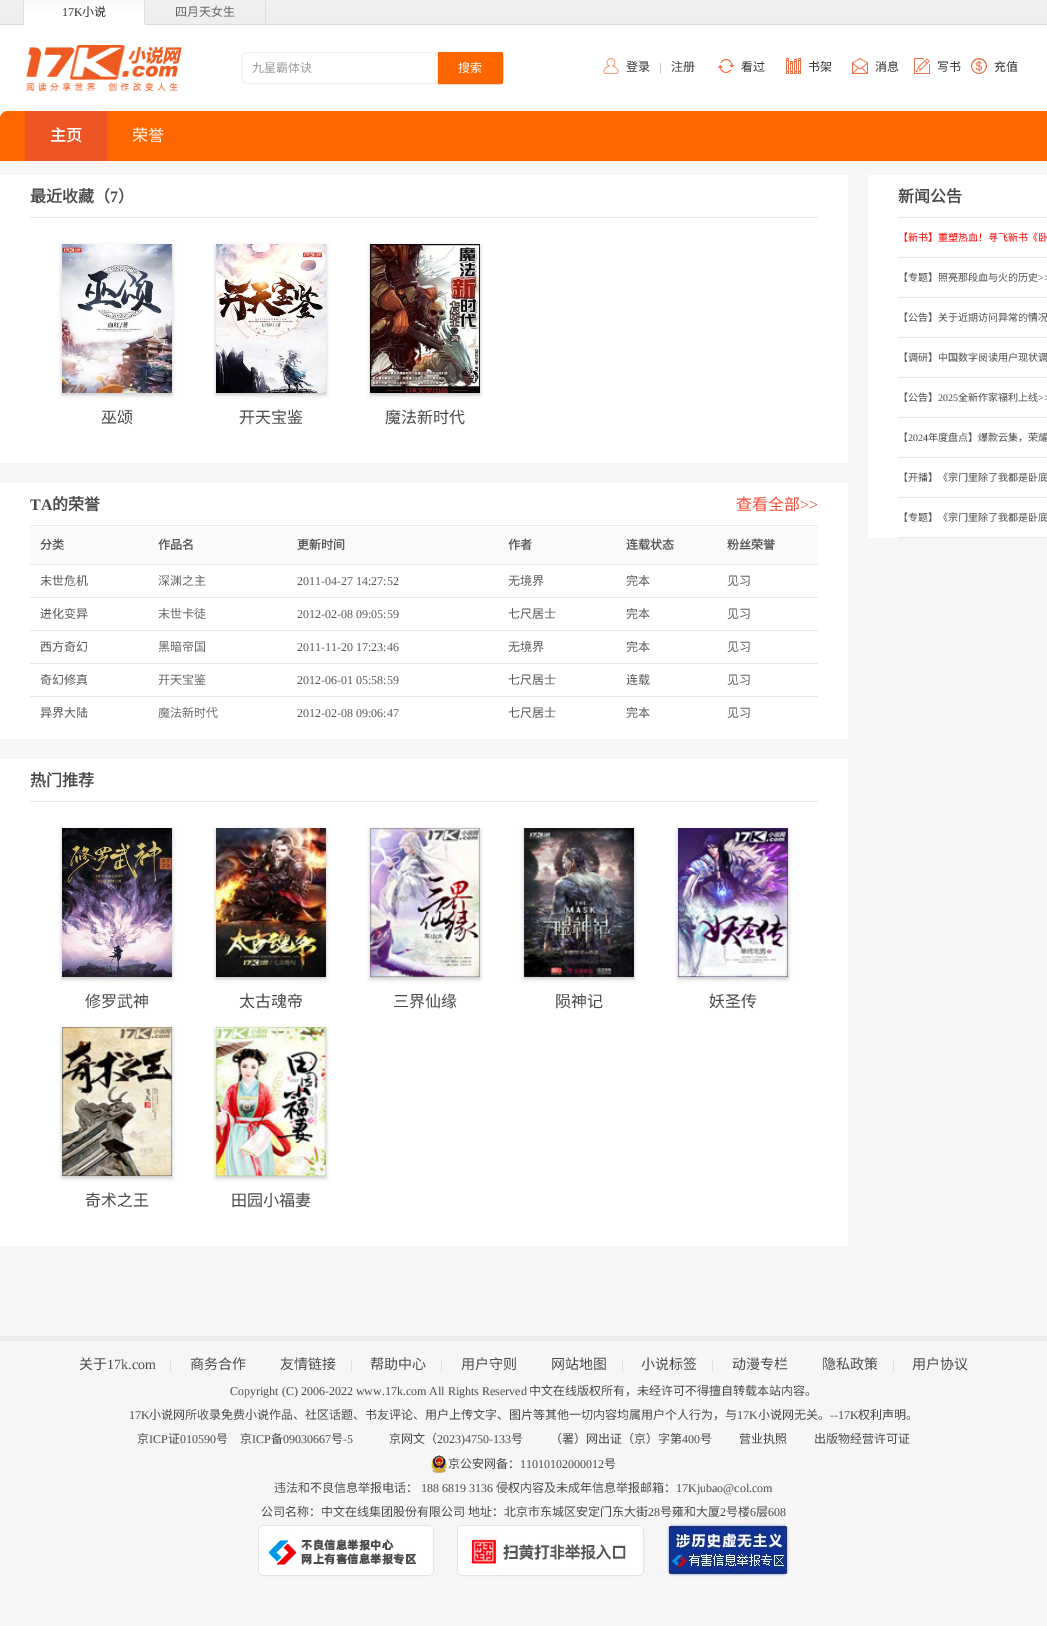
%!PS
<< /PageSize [1047 1626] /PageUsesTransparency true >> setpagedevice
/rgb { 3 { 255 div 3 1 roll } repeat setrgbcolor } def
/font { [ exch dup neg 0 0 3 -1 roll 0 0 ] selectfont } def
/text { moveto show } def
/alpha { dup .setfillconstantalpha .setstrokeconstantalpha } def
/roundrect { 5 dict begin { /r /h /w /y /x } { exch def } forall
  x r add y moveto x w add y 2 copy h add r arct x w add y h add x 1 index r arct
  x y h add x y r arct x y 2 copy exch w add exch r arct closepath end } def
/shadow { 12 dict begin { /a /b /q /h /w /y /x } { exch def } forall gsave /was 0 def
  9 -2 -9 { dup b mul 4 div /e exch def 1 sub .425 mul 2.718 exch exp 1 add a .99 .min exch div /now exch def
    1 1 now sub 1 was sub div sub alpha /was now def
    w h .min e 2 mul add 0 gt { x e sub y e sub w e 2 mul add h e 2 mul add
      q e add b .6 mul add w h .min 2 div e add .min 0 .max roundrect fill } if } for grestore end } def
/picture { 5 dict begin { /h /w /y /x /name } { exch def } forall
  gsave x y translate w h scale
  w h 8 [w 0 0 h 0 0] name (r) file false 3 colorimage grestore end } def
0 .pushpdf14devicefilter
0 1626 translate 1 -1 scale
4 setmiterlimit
246 246 246 rgb
0 0 1047 1626 rectfill
255 255 255 rgb
0 25 1047 86 rectfill
gsave 0 0 moveto 1047 0 rlineto 0 24 rlineto -1047 0 rlineto closepath clip newpath
<< /ShadingType 2 /ColorSpace /DeviceRGB /Coords [524 0 524 24] /Extend [true true] /Function << /FunctionType 2 /Domain [0 1] /C0 [0.945 0.945 0.945] /C1 [0.933 0.933 0.933] /N 1 >> >> shfill grestore
221 221 221 rgb
0 24 1047 1 rectfill
23 0 1 24 rectfill
gsave 24 0 moveto 120 0 rlineto 0 24 rlineto -120 0 rlineto closepath clip newpath
<< /ShadingType 2 /ColorSpace /DeviceRGB /Coords [84 0 84 24] /Extend [true true] /Function << /FunctionType 3 /Domain [0 1] /Functions [<< /FunctionType 2 /Domain [0 1] /C0 [0.973 0.973 0.973] /C1 [1 1 1] /N 1 >> << /FunctionType 2 /Domain [0 1] /C0 [1 1 1] /C1 [1 1 1] /N 1 >>] /Bounds [0.5] /Encode [0 1 0 1] >> >> shfill grestore
144 0 1 25 rectfill
255 255 255 rgb
24 24 121 1 rectfill
221 221 221 rgb
265 0 1 24 rectfill
(img_01.rgb) 26 45 156 46 picture
241 241 241 rgb
247 52.5 moveto 190.5 0 rlineto 0 31 rlineto -190.5 0 rlineto -3 0 -5.5 -2.5 -5.5 -5.5 rcurveto 0 -20 rlineto 0 -3 2.5 -5.5 5.5 -5.5 rcurveto closepath stroke
255 102 0 rgb
438.5 52.5 moveto 62.5 0 rlineto 1 0 1.5 0.5 1.5 1.5 rcurveto 0 28 rlineto 0 1 -0.5 1.5 -1.5 1.5 rcurveto -62.5 0 rlineto closepath gsave fill grestore
stroke
(img_02.rgb) 603 58 16 16 picture
(img_03.rgb) 718 59 16 14 picture
(img_04.rgb) 786 58 15 16 picture
(img_05.rgb) 852 58 16 16 picture
(img_06.rgb) 914 58 16 16 picture
(img_07.rgb) 971 58 16 16 picture
8 111 moveto 1039 0 rlineto 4.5 0 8 3.5 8 8 rcurveto 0 42 rlineto -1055 0 rlineto 0 -42 rlineto 0 -4.5 3.5 -8 8 -8 rcurveto closepath fill
238 85 37 rgb
25 111 82 50 rectfill
255 255 255 rgb
0 175 848 288 rectfill
232 232 232 rgb
30 217 788 1 rectfill
0 0 0 rgb
62 246 110 149 0 2 0.22 shadow
(img_08.rgb) 62 244 110 149 picture
216 246 110 149 0 2 0.22 shadow
(img_09.rgb) 216 244 110 149 picture
370 246 110 149 0 2 0.22 shadow
(img_10.rgb) 370 244 110 149 picture
255 255 255 rgb
0 483 848 256 rectfill
232 232 232 rgb
30 525 788 1 rectfill
250 250 250 rgb
30 527 788 37 rectfill
232 232 232 rgb
30 564 788 1 rectfill
30 597 788 1 rectfill
30 630 788 1 rectfill
30 663 788 1 rectfill
30 696 788 1 rectfill
255 255 255 rgb
0 759 848 487 rectfill
232 232 232 rgb
30 801 788 1 rectfill
0 0 0 rgb
62 830 110 149 0 2 0.22 shadow
(img_11.rgb) 62 828 110 149 picture
216 830 110 149 0 2 0.22 shadow
(img_12.rgb) 216 828 110 149 picture
370 830 110 149 0 2 0.22 shadow
(img_13.rgb) 370 828 110 149 picture
524 830 110 149 0 2 0.22 shadow
(img_14.rgb) 524 828 110 149 picture
678 830 110 149 0 2 0.22 shadow
(img_15.rgb) 678 828 110 149 picture
62 1029 110 149 0 2 0.22 shadow
(img_16.rgb) 62 1027 110 149 picture
216 1029 110 149 0 2 0.22 shadow
(img_17.rgb) 216 1027 110 149 picture
255 255 255 rgb
868 175 179 363 rectfill
232 232 232 rgb
898 217 149 1 rectfill
898 257 149 1 rectfill
898 297 149 1 rectfill
898 337 149 1 rectfill
898 377 149 1 rectfill
898 417 149 1 rectfill
898 457 149 1 rectfill
898 497 149 1 rectfill
898 537 149 1 rectfill
235 235 235 rgb
0 1336 1047 5 rectfill
(img_18.rgb) 431 1455 16 18 picture
227 227 227 rgb
258.5 1525.5 175 50 5.5 roundrect stroke
(img_19.rgb) 259 1526 174 49 picture
457.5 1525.5 186 50 5.5 roundrect stroke
(img_20.rgb) 458 1526 185 49 picture
667.5 1524.5 121 51 5.5 roundrect stroke
(img_21.rgb) 668 1525 120 50 picture
/LiberationSerif-Regular 12 font
51 51 51 rgb
(17K) 62 16 text
/NotoSansCJKSC-Regular 12 font
(小说) 82 16 text
102 102 102 rgb
(四月天女生) 175 16 text
153 153 153 rgb
(九星霸体诀) 252 72 text
255 255 255 rgb
(搜索) 458 72 text
51 51 51 rgb
(登录) 626 71 text
/LiberationSerif-Regular 12 font
153 153 153 rgb
(|) 659 71 text
/NotoSansCJKSC-Regular 12 font
51 51 51 rgb
(注册) 671 71 text
(看过) 741 71 text
(书架) 808 71 text
(消息) 875 71 text
(写书) 937 71 text
(充值) 994 71 text
/NotoSansCJKSC-Bold 16 font
255 255 255 rgb
(主页) 50 141 text
/NotoSansCJKSC-Regular 16 font
(荣誉) 132 141 text
/NotoSansCJKSC-Bold 16 font
74 74 74 rgb
(最近收藏（) 30 202 text
/LiberationSerif-Bold 16 font
(7) 110 202 text
/NotoSansCJKSC-Bold 16 font
(）) 118 202 text
/NotoSansCJKSC-Regular 16 font
(巫颂) 101 423 text
(开天宝鉴) 239 423 text
(魔法新时代) 385 423 text
/LiberationSerif-Bold 16 font
(TA) 30 510 text
/NotoSansCJKSC-Bold 16 font
(的荣誉) 52 510 text
/NotoSansCJKSC-Regular 16 font
241 76 54 rgb
(查看全部) 736 510 text
/LiberationSerif-Regular 16 font
(>>) 800 510 text
/NotoSansCJKSC-Bold 12 font
88 88 88 rgb
(分类) 40 549 text
(作品名) 158 549 text
(更新时间) 297 549 text
(作者) 508 549 text
(连载状态) 626 549 text
(粉丝荣誉) 727 549 text
/NotoSansCJKSC-Regular 12 font
(末世危机) 40 585 text
102 102 102 rgb
(深渊之主) 158 585 text
/LiberationSerif-Regular 12 font
88 88 88 rgb
(2011-04-27 14:27:52) 297 585 text
/NotoSansCJKSC-Regular 12 font
(无境界) 508 585 text
(完本) 626 585 text
(见习) 727 585 text
(进化变异) 40 618 text
102 102 102 rgb
(末世卡徒) 158 618 text
/LiberationSerif-Regular 12 font
88 88 88 rgb
(2012-02-08 09:05:59) 297 618 text
/NotoSansCJKSC-Regular 12 font
(七尺居士) 508 618 text
(完本) 626 618 text
(见习) 727 618 text
(西方奇幻) 40 651 text
102 102 102 rgb
(黑暗帝国) 158 651 text
/LiberationSerif-Regular 12 font
88 88 88 rgb
(2011-11-20 17:23:46) 297 651 text
/NotoSansCJKSC-Regular 12 font
(无境界) 508 651 text
(完本) 626 651 text
(见习) 727 651 text
(奇幻修真) 40 684 text
102 102 102 rgb
(开天宝鉴) 158 684 text
/LiberationSerif-Regular 12 font
88 88 88 rgb
(2012-06-01 05:58:59) 297 684 text
/NotoSansCJKSC-Regular 12 font
(七尺居士) 508 684 text
(连载) 626 684 text
(见习) 727 684 text
(异界大陆) 40 717 text
102 102 102 rgb
(魔法新时代) 158 717 text
/LiberationSerif-Regular 12 font
88 88 88 rgb
(2012-02-08 09:06:47) 297 717 text
/NotoSansCJKSC-Regular 12 font
(七尺居士) 508 717 text
(完本) 626 717 text
(见习) 727 717 text
/NotoSansCJKSC-Bold 16 font
74 74 74 rgb
(热门推荐) 30 786 text
/NotoSansCJKSC-Regular 16 font
(修罗武神) 85 1007 text
(太古魂帝) 239 1007 text
(三界仙缘) 393 1007 text
(陨神记) 555 1007 text
(妖圣传) 709 1007 text
(奇术之王) 85 1206 text
(田园小福妻) 231 1206 text
/NotoSansCJKSC-Bold 16 font
(新闻公告) 898 202 text
/NotoSansCJKSC-Regular 10 font
255 0 0 rgb
(【新书】重塑热血！寻飞新书《卧) 898 241 text
74 74 74 rgb
(【专题】照亮那段血与火的历史) 898 281 text
/LiberationSerif-Regular 10 font
(>>) 1038 281 text
/NotoSansCJKSC-Regular 10 font
(【公告】关于近期访问异常的情况) 898 321 text
(【调研】中国数字阅读用户现状调) 898 361 text
(【公告】) 898 401 text
/LiberationSerif-Regular 10 font
(2025) 938 401 text
/NotoSansCJKSC-Regular 10 font
(全新作家福利上线) 958 401 text
/LiberationSerif-Regular 10 font
(>>) 1038 401 text
/NotoSansCJKSC-Regular 10 font
(【) 898 441 text
/LiberationSerif-Regular 10 font
(2024) 908 441 text
/NotoSansCJKSC-Regular 10 font
(年度盘点】爆款云集，荣耀) 928 441 text
(【开播】《宗门里除了我都是卧底) 898 481 text
(【专题】《宗门里除了我都是卧底) 898 521 text
/NotoSansCJKSC-Regular 14 font
(关于) 79 1369 text
/LiberationSerif-Regular 14 font
(17k.com) 107 1369 text
217 217 217 rgb
(|) 169 1369 text
/NotoSansCJKSC-Regular 14 font
74 74 74 rgb
(商务合作) 190 1369 text
(友情链接) 280 1369 text
/LiberationSerif-Regular 14 font
217 217 217 rgb
(|) 350 1369 text
/NotoSansCJKSC-Regular 14 font
74 74 74 rgb
(帮助中心) 370 1369 text
/LiberationSerif-Regular 14 font
217 217 217 rgb
(|) 440 1369 text
/NotoSansCJKSC-Regular 14 font
74 74 74 rgb
(用户守则) 461 1369 text
(网站地图) 551 1369 text
/LiberationSerif-Regular 14 font
217 217 217 rgb
(|) 621 1369 text
/NotoSansCJKSC-Regular 14 font
74 74 74 rgb
(小说标签) 641 1369 text
/LiberationSerif-Regular 14 font
217 217 217 rgb
(|) 711 1369 text
/NotoSansCJKSC-Regular 14 font
74 74 74 rgb
(动漫专栏) 732 1369 text
(隐私政策) 822 1369 text
/LiberationSerif-Regular 14 font
217 217 217 rgb
(|) 892 1369 text
/NotoSansCJKSC-Regular 14 font
74 74 74 rgb
(用户协议) 912 1369 text
/LiberationSerif-Regular 12 font
(Copyright \(C\) 2006-2022 www.17k.com All Rights Reserved) 230 1395 text
/NotoSansCJKSC-Regular 12 font
(中文在线版权所有，未经许可不得擅自转载本站内容。) 529 1395 text
/LiberationSerif-Regular 12 font
(17K) 129 1419 text
/NotoSansCJKSC-Regular 12 font
(小说网所收录免费小说作品、社区话题、书友评论、用户上传文字、图片等其他一切内容均属用户个人行为，与) 149 1419 text
/LiberationSerif-Regular 12 font
(17K) 737 1419 text
/NotoSansCJKSC-Regular 12 font
(小说网无关。) 758 1419 text
/LiberationSerif-Regular 12 font
(--17K) 830 1419 text
/NotoSansCJKSC-Regular 12 font
(权利声明。) 858 1419 text
(京) 137 1443 text
/LiberationSerif-Regular 12 font
(ICP) 149 1443 text
/NotoSansCJKSC-Regular 12 font
(证) 168 1443 text
/LiberationSerif-Regular 12 font
(010590) 180 1443 text
/NotoSansCJKSC-Regular 12 font
(号) 216 1443 text
(京) 240 1443 text
/LiberationSerif-Regular 12 font
(ICP) 252 1443 text
/NotoSansCJKSC-Regular 12 font
(备) 271 1443 text
/LiberationSerif-Regular 12 font
(09030667) 283 1443 text
/NotoSansCJKSC-Regular 12 font
(号) 331 1443 text
/LiberationSerif-Regular 12 font
(-5) 343 1443 text
/NotoSansCJKSC-Regular 12 font
(京网文（) 389 1443 text
/LiberationSerif-Regular 12 font
(2023\)4750-133) 437 1443 text
/NotoSansCJKSC-Regular 12 font
(号　　 （署）网出证（京）字第) 511 1443 text
/LiberationSerif-Regular 12 font
(400) 682 1443 text
/NotoSansCJKSC-Regular 12 font
(号) 700 1443 text
(营业执照) 739 1443 text
(出版物经营许可证) 814 1443 text
(京公安网备：) 448 1468 text
/LiberationSerif-Regular 12 font
(11010102000012) 520 1468 text
/NotoSansCJKSC-Regular 12 font
(号) 604 1468 text
(违法和不良信息举报电话：) 274 1492 text
/LiberationSerif-Regular 12 font
(188 6819 3136) 421 1492 text
/NotoSansCJKSC-Regular 12 font
(侵权内容及未成年信息举报邮箱：) 496 1492 text
/LiberationSerif-Regular 12 font
(17Kjubao@col.com) 676 1492 text
/NotoSansCJKSC-Regular 12 font
(公司名称：中文在线集团股份有限公司 地址：北京市东城区安定门东大街) 261 1516 text
/LiberationSerif-Regular 12 font
(28) 648 1516 text
/NotoSansCJKSC-Regular 12 font
(号雍和大厦) 660 1516 text
/LiberationSerif-Regular 12 font
(2) 720 1516 text
/NotoSansCJKSC-Regular 12 font
(号楼) 726 1516 text
/LiberationSerif-Regular 12 font
(6) 750 1516 text
/NotoSansCJKSC-Regular 12 font
(层) 756 1516 text
/LiberationSerif-Regular 12 font
(608) 768 1516 text
.poppdf14devicefilter showpage
